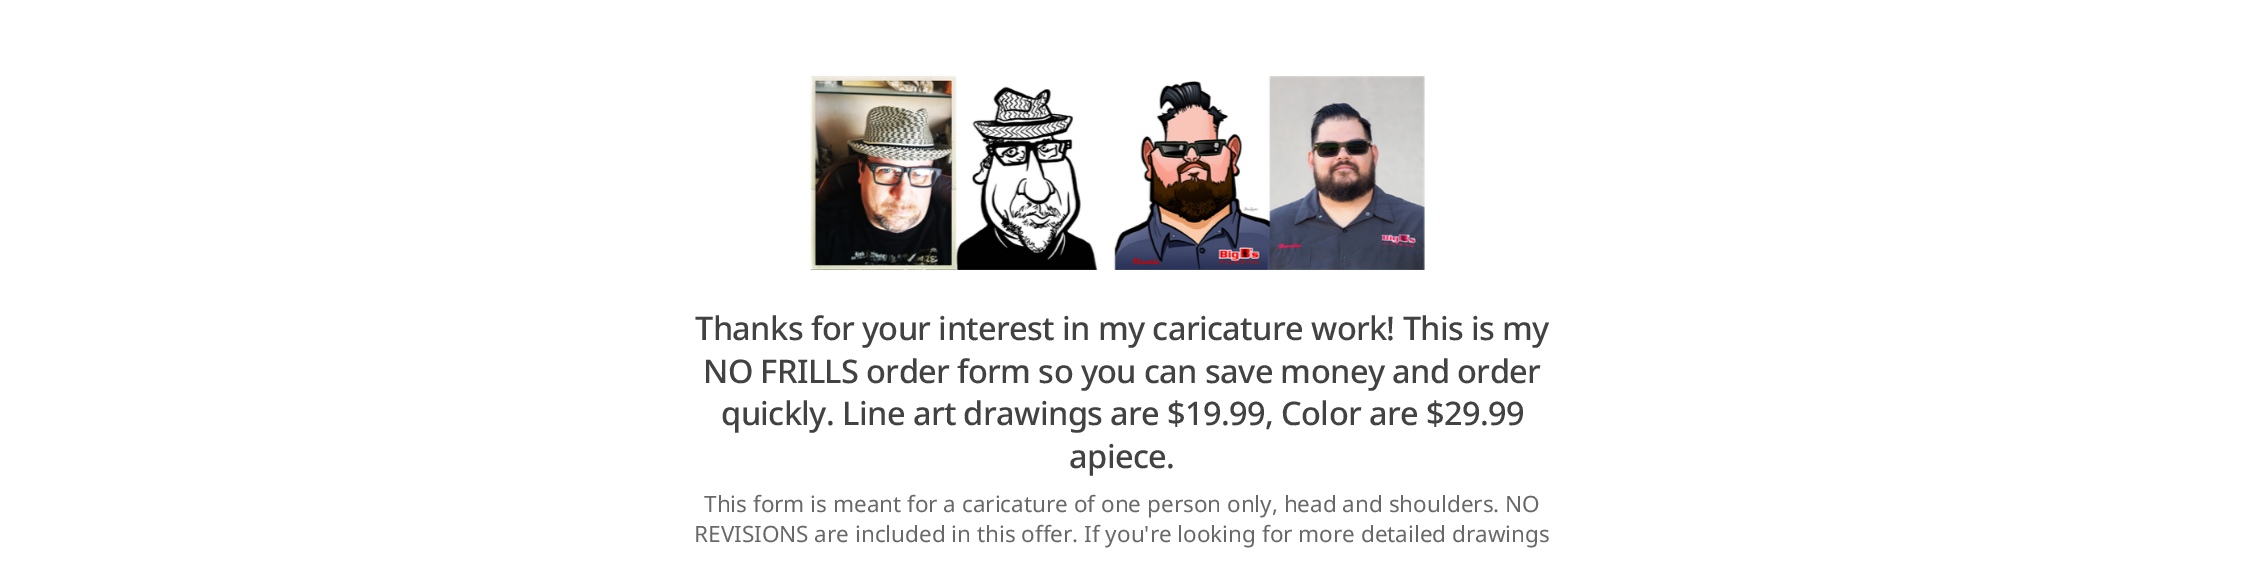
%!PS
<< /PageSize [2243 565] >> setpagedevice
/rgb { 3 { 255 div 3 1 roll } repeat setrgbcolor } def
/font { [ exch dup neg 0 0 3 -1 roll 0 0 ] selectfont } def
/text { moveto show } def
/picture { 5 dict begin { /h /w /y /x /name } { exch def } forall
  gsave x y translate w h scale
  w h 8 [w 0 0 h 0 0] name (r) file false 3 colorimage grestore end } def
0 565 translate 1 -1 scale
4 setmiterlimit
255 255 255 rgb
0 0 2243 565 rectfill
(img_01.rgb) 810 76 615 194 picture
/NotoSans-Medium 32.5 font
66 66 66 rgb
695 340 moveto -0.62 0 (Thanks for your interest in my caricature work! This is my) ashow
703 383 moveto -0.62 0 (NO FRILLS order form so you can save money and order) ashow
721 425 moveto -0.62 0 (quickly. Line art drawings are $19.99, Color are $29.99) ashow
1069 468 moveto -0.62 0 (apiece.) ashow
/NotoSans-Regular 22.5 font
104 104 104 rgb
(This form is meant for a caricature of one person only, head and shoulders. NO) 704 512 text
(REVISIONS are included in this offer. If you're looking for more detailed drawings) 694 542 text
showpage
